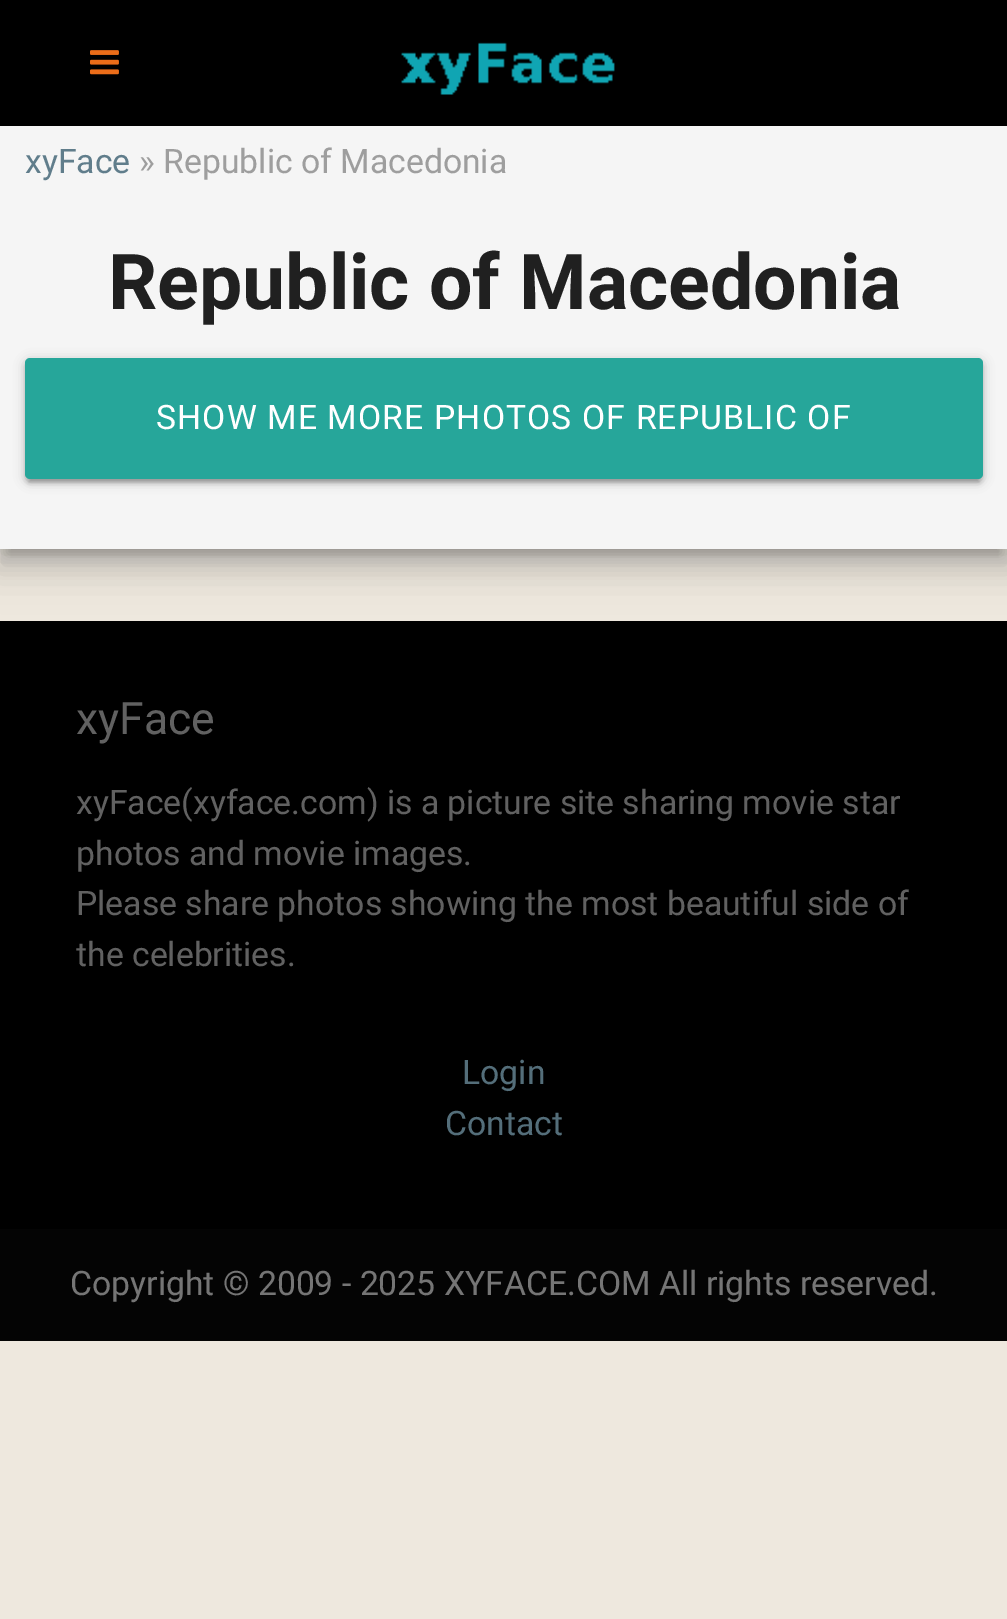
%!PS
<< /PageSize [1007 1619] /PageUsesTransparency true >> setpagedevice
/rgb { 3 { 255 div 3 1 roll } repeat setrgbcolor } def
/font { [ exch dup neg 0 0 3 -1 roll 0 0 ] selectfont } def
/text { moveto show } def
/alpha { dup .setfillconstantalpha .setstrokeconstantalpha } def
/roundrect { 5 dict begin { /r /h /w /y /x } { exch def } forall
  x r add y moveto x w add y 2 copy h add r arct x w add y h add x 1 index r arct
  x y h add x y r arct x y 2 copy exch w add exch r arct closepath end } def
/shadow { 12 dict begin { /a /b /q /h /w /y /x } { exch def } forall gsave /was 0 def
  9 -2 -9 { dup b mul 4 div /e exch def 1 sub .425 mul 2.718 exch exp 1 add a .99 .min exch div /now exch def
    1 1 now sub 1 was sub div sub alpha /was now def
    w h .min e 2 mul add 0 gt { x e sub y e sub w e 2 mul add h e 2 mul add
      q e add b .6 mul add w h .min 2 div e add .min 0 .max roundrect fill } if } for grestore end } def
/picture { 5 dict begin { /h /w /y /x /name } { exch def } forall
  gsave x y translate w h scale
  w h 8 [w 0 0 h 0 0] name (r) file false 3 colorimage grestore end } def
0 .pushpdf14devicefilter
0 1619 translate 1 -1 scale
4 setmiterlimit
238 232 222 rgb
0 0 1007 1619 rectfill
0 0 0 rgb
0 0 1007 126 rectfill
(img_01.rgb) 90 50 29 25 picture
-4 128 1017 432 0 16 0.12 shadow
-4 140 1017 432 0 19 0.14 shadow
(img_02.rgb) 401 42 214 53 picture
7 144 994 410 0 5.5 0.2 shadow
245 245 245 rgb
0 126 1007 423 rectfill
0 0 0 rgb
25 360 958 122 5 5.5 0.2 shadow
29 369 950 113 0 1 0.12 shadow
25 362 958 122 5 2 0.14 shadow
38 166 154 rgb
25 358 958 121 5 roundrect fill
0 0 0 rgb
0 621 1007 608 rectfill
4 4 4 rgb
0 1229 1007 112 rectfill
/Roboto-Regular 33.75 font
96 125 139 rgb
(xyFace) 25 173 text
158 158 158 rgb
(» Republic of Macedonia) 139 173 text
/Roboto-Bold 77 font
32 32 32 rgb
(Republic of Macedonia) 108 309 text
/Roboto-Regular 33.75 font
255 255 255 rgb
156 429 moveto 1.1 0 (SHOW ME MORE PHOTOS OF REPUBLIC OF) ashow
/Roboto-Regular 44.5 font
97 97 97 rgb
(xyFace) 76 734 text
/Roboto-Regular 33.75 font
(xyFace\(xyface.com\) is a picture site sharing movie star) 76 814 text
(photos and movie images.) 76 865 text
(Please share photos showing the most beautiful side of) 76 915 text
(the celebrities.) 76 966 text
84 110 122 rgb
(Login) 462 1084 text
(Contact) 445 1135 text
117 117 117 rgb
(Copyright © 2009 - 2025 XYFACE.COM All rights reserved.) 70 1295 text
.poppdf14devicefilter showpage
